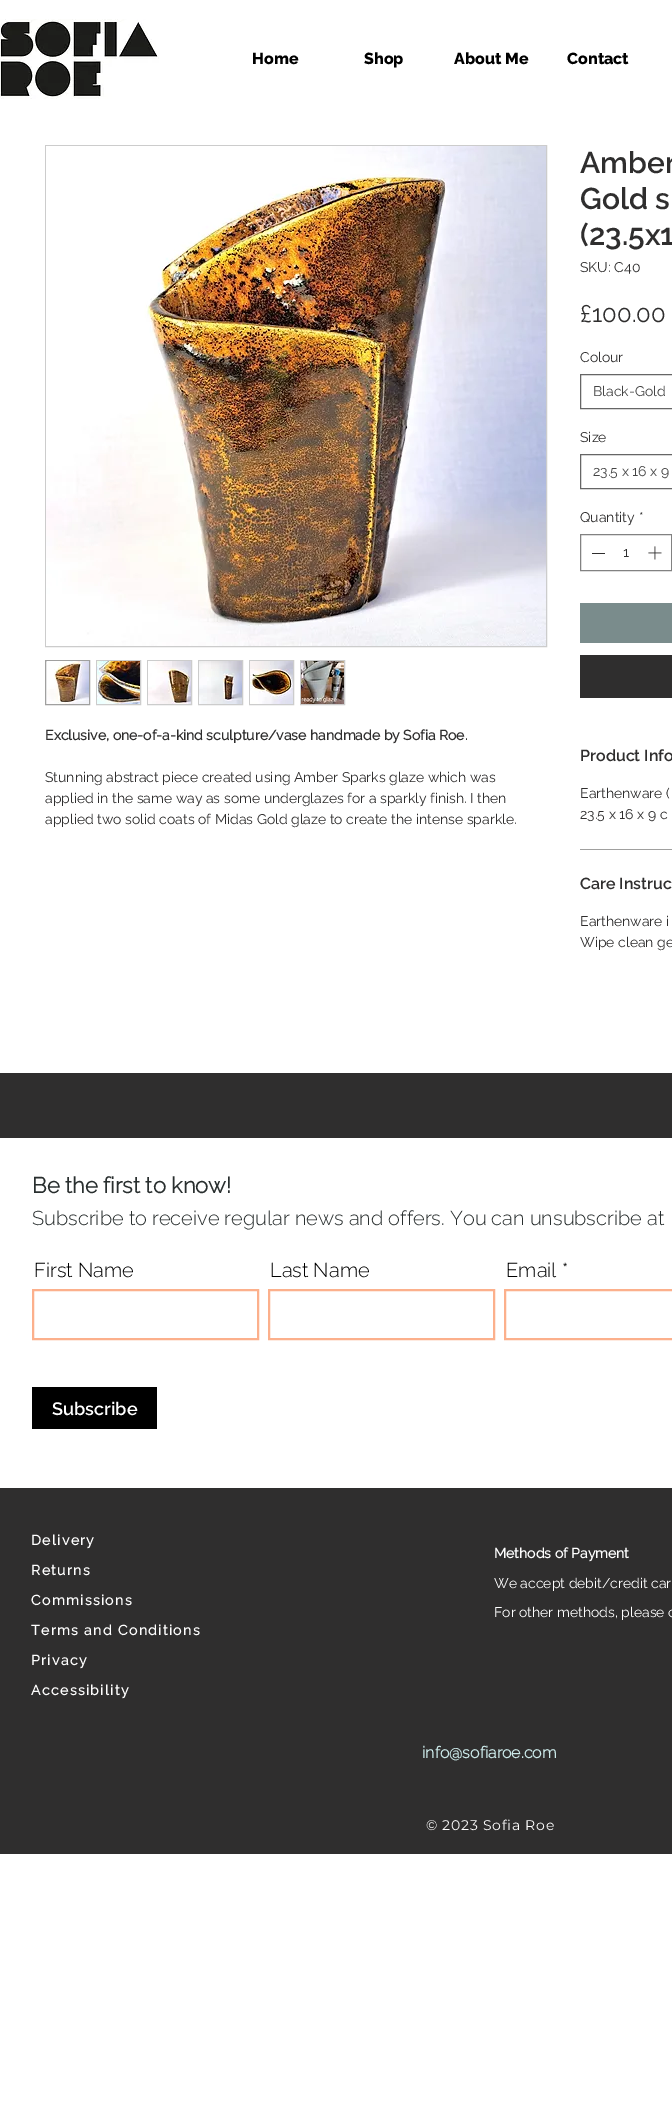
%!PS
<< /PageSize [672 2120] >> setpagedevice
/rgb { 3 { 255 div 3 1 roll } repeat setrgbcolor } def
/font { [ exch dup neg 0 0 3 -1 roll 0 0 ] selectfont } def
/text { moveto show } def
/picture { 5 dict begin { /h /w /y /x /name } { exch def } forall
  gsave x y translate w h scale
  w h 8 [w 0 0 h 0 0] name (r) file false 3 colorimage grestore end } def
0 2120 translate 1 -1 scale
4 setmiterlimit
255 255 255 rgb
0 0 672 2120 rectfill
(img_01.rgb) 0 19 159 80 picture
204 204 204 rgb
45.5 145.5 501 501 rectstroke
(img_02.rgb) 46 146 500 500 picture
160 160 159 rgb
45.5 660.5 44 44 rectstroke
(img_03.rgb) 47 661 42 43 picture
204 204 204 rgb
96.5 660.5 44 44 rectstroke
(img_04.rgb) 97 661 43 43 picture
147.5 660.5 44 44 rectstroke
(img_05.rgb) 148 661 43 43 picture
198.5 660.5 44 44 rectstroke
(img_06.rgb) 199 661 43 43 picture
249.5 660.5 44 44 rectstroke
(img_07.rgb) 250 661 43 43 picture
300.5 660.5 44 44 rectstroke
(img_08.rgb) 301 661 43 43 picture
102 102 102 rgb
580.5 374.5 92 34 rectstroke
580.5 454.5 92 34 rectstroke
130 130 130 rgb
580.5 534.5 91 36 rectstroke
47 46 46 rgb
592 553 13 1 rectfill
(img_09.rgb) 648 546 14 14 picture
122 140 140 rgb
580 603 92 40 rectfill
47 46 46 rgb
580 655 92 43 rectfill
160 160 159 rgb
580 849 92 1 rectfill
47 46 46 rgb
0 1073 672 781 rectfill
255 255 255 rgb
0 1138 672 350 rectfill
252 176 140 rgb
2 setlinewidth
33 1290 225 49 rectstroke
269 1290 225 49 rectstroke
505 1290 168 49 rectstroke
0 0 0 rgb
32 1387 125 42 rectfill
/Raleway-ExtraBold 16 font
(Home) 252 64 text
(Shop) 364 64 text
(About Me) 454 64 text
(Contact) 567 64 text
/Raleway-Bold 14 font
47 46 46 rgb
(Exclusive, one-of-a-kind sculpture/vase handmade by Sofia Roe.) 45 740 text
/Raleway-Regular 14 font
(Stunning abstract piece created using Amber Sparks glaze which was) 45 782 text
(applied in the same way as some underglazes for a sparkly finish. I then) 45 803 text
(applied two solid coats of Midas Gold glaze to create the intense sparkle.) 45 824 text
/Raleway-SemiBold 30 font
(Amber) 580 173 text
(Gold s) 580 209 text
(\(23.5x1) 580 245 text
/Raleway-Regular 14 font
(SKU: C40) 580 272 text
/Raleway-Regular 24 font
(£100.00) 580 322 text
/Raleway-Regular 14 font
(Colour) 580 362 text
68 68 68 rgb
(Black-Gold) 593 396 text
47 46 46 rgb
(Size) 580 442 text
68 68 68 rgb
(23.5 x 16 x 9) 593 476 text
47 46 46 rgb
(Quantity) 580 522 text
(*) 639 522 text
(1) 623 557 text
/Raleway-SemiBold 16 font
(Product Info) 580 761 text
/Raleway-Regular 14 font
(Earthenware \() 580 798 text
(23.5 x 16 x 9 c) 580 819 text
/Raleway-SemiBold 16 font
(Care Instruc) 580 889 text
/Raleway-Regular 14 font
(Earthenware i) 580 926 text
(Wipe clean ge) 580 947 text
/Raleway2-Bold 22 font
41 47 47 rgb
(Be the first to know!) 32 1193 text
/Raleway-Light 20 font
(Subscribe to receive regular news and offers. You can unsubscribe at) 32 1225 text
0 0 0 rgb
(First Name) 34 1277 text
(Last Name) 270 1277 text
(Email *) 506 1277 text
/Raleway-SemiBold 18 font
255 255 255 rgb
(Subscribe) 52 1415 text
/Raleway-Bold 14 font
31 1545 moveto 1.4 0 (Delivery) ashow
31 1575 moveto 1.4 0 (Returns) ashow
(Methods of Payment) 494 1558 text
/Raleway-Regular 14 font
(We accept debit/credit car) 494 1588 text
(For other methods, please c) 494 1617 text
/Raleway-Bold 14 font
31 1605 moveto 1.4 0 (Commissions) ashow
31 1635 moveto 1.4 0 (Terms and Conditions) ashow
31 1665 moveto 1.4 0 (Privacy) ashow
31 1695 moveto 1.4 0 (Accessibility) ashow
/Raleway2-Bold 16 font
204 234 234 rgb
(info@sofiaroe.com) 422 1758 text
/Montserrat-Regular 14 font
255 255 255 rgb
426 1830 moveto 0.75 0 (© 2023 Sofia Roe) ashow
showpage
